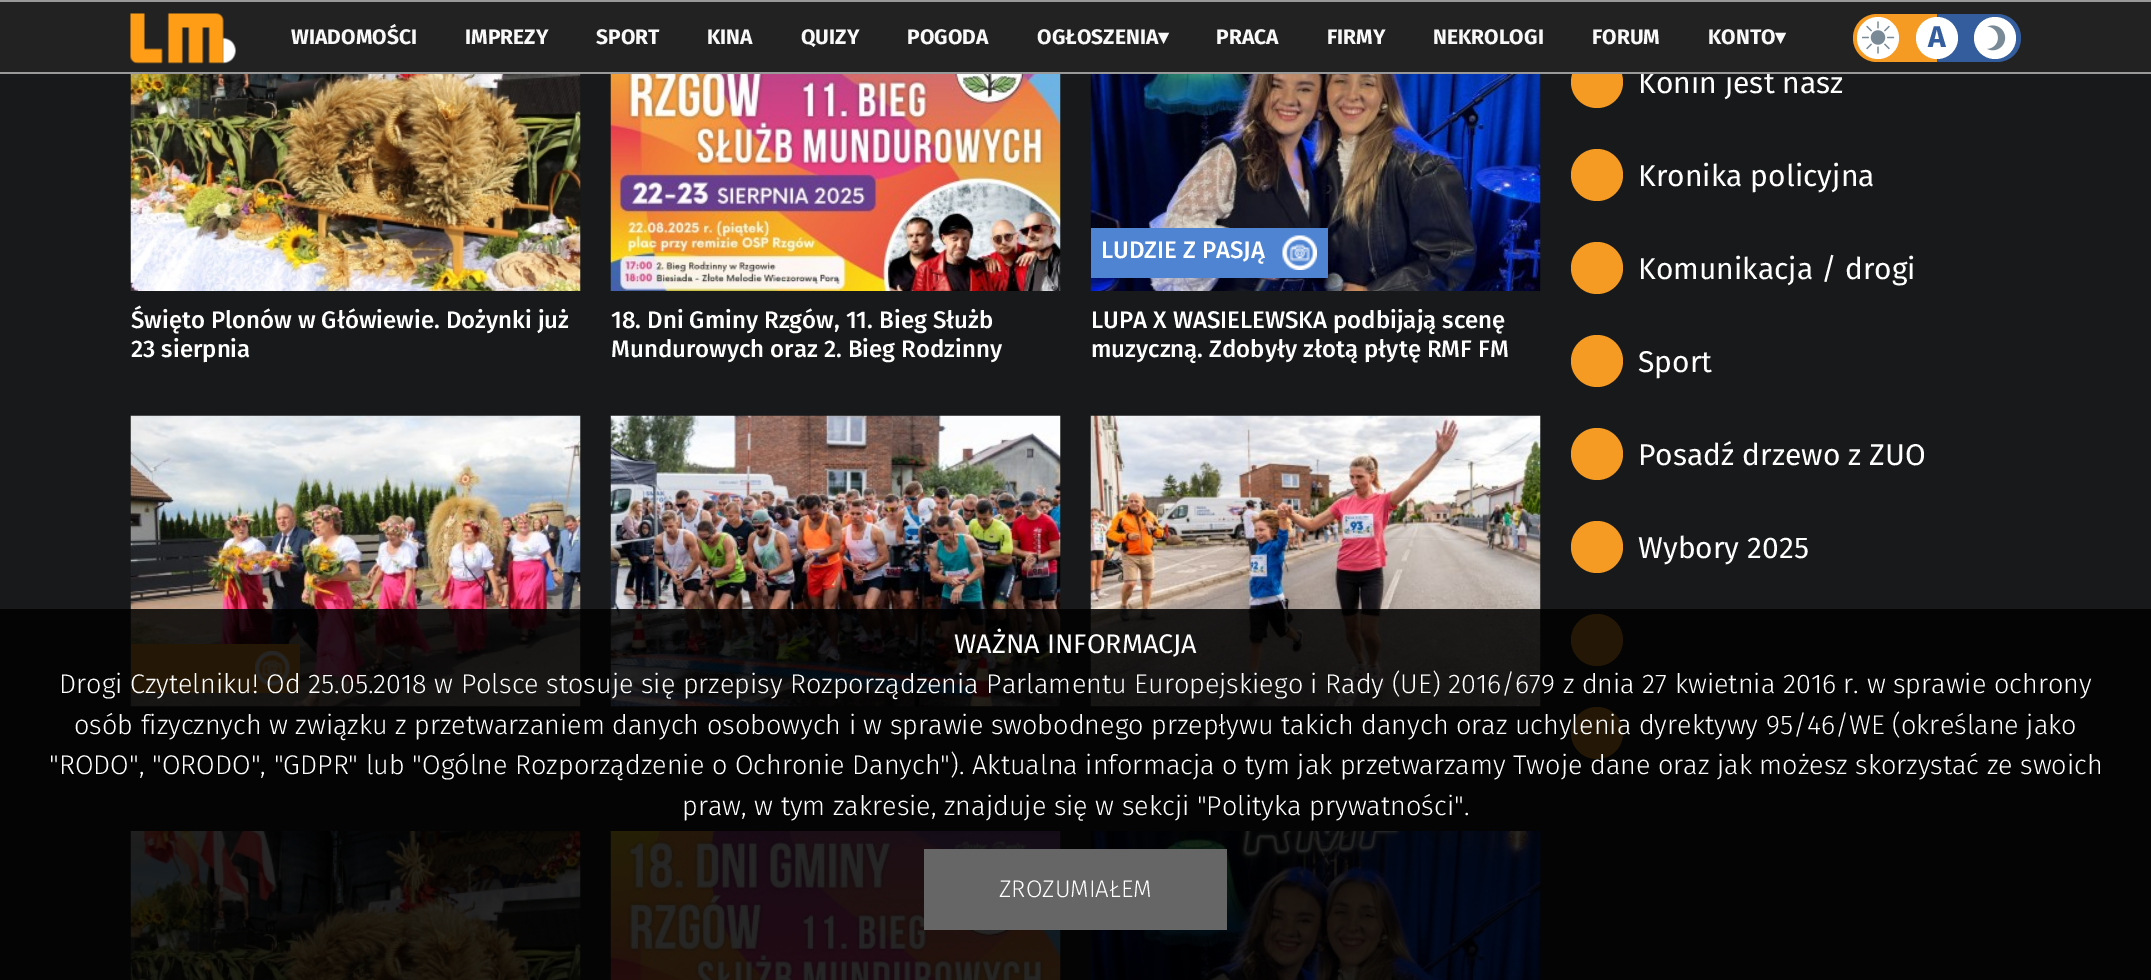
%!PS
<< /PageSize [2151 980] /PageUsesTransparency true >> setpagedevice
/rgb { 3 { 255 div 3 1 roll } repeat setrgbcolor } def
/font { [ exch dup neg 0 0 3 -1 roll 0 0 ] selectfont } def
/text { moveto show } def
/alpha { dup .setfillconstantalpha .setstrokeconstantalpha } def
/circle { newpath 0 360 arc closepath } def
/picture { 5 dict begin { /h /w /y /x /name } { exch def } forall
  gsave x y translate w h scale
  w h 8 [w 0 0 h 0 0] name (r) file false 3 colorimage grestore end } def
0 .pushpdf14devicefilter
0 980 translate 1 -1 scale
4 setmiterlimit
24 25 26 rgb
0 0 2151 980 rectfill
153 153 153 rgb
0 0 2151 2 rectfill
(img_04.rgb) 130 74 451 217 picture
(img_05.rgb) 610 74 451 217 picture
(img_06.rgb) 1090 74 451 217 picture
79 132 210 rgb
1091 228 237 50 rectfill
(img_07.rgb) 1282 235 35 35 picture
(img_08.rgb) 130 415 451 292 picture
245 155 35 rgb
131 644 169 49 rectfill
(img_09.rgb) 255 651 35 35 picture
(img_10.rgb) 610 415 451 292 picture
(img_11.rgb) 1090 415 451 292 picture
(img_12.rgb) 130 831 451 149 picture
(img_13.rgb) 610 831 451 149 picture
(img_14.rgb) 1090 831 451 149 picture
1597 82 26 circle fill
1597 175 26 circle fill
1597 268 26 circle fill
1597 361 26 circle fill
1597 454 26 circle fill
1597 547 26 circle fill
1597 640 26 circle fill
1597 733 26 circle fill
0.85 alpha
0 0 0 rgb
0 609 2151 371 rectfill
1 alpha
102 102 102 rgb
924 849 303 81 rectfill
/FiraSans-Medium 24 font
255 255 255 rgb
(Święto Plonów w Główiewie. Dożynki już) 131 328 text
(23 sierpnia) 131 357 text
(18. Dni Gminy Rzgów, 11. Bieg Służb) 611 328 text
(Mundurowych oraz 2. Bieg Rodzinny) 611 357 text
(LUDZIE Z PASJĄ) 1101 258 text
(LUPA X WASIELEWSKA podbijają scenę) 1091 328 text
(muzyczną. Zdobyły złotą płytę RMF FM) 1091 357 text
/FiraSans-Regular 30 font
(Konin jest nasz) 1638 93 text
34 34 34 rgb
0 2 2151 70 rectfill
52 93 157 rgb
1937 14 moveto 60 0 rlineto 13.5 0 24 10.5 24 24 rcurveto 0 13.5 -10.5 24 -24 24 rcurveto -60 0 rlineto closepath fill
255 255 255 rgb
1995 38 21 circle fill
(img_03.rgb) 1987 25 19 26 picture
245 155 35 rgb
1877 14 moveto 60 0 rlineto 0 48 rlineto -60 0 rlineto -13.5 0 -24 -10.5 -24 -24 rcurveto 0 -13.5 10.5 -24 24 -24 rcurveto closepath fill
255 255 255 rgb
1937 38 21 circle fill
/FiraSans-Bold 30 font
52 93 157 rgb
(A) 1928 47 text
255 255 255 rgb
1878 38 21 circle fill
(img_02.rgb) 1862 21 33 33 picture
/DejaVuSans-Bold 21 font
249 249 249 rgb
(▾) 1775 44 text
/FiraSans-Bold 21 font
(KONTO) 1708 44 text
(FORUM) 1592 44 text
(NEKROLOGI) 1433 44 text
(FIRMY) 1327 44 text
(PRACA) 1216 44 text
(OGŁOSZENIA) 1037 44 text
/DejaVuSans-Bold 21 font
(▾) 1158 44 text
/FiraSans-Bold 21 font
(POGODA) 907 44 text
(QUIZY) 801 44 text
(KINA) 707 44 text
(SPORT) 596 44 text
(IMPREZY) 465 44 text
(WIADOMOŚCI) 291 44 text
(img_01.rgb) 130 13 106 51 picture
153 153 153 rgb
0 72 2151 2 rectfill
/FiraSans-Regular 30 font
255 255 255 rgb
(Kronika policyjna) 1638 186 text
(Komunikacja / drogi) 1638 279 text
(Sport) 1638 372 text
(Posadź drzewo z ZUO) 1638 465 text
(Wybory 2025) 1638 558 text
/FiraSans-Regular 27 font
(WAŻNA INFORMACJA) 954 653 text
/FiraSans-Light 27 font
(Drogi Czytelniku! Od 25.05.2018 w Polsce stosuje się przepisy Rozporządzenia Parlamentu Europejskiego i Rady \(UE\) 2016/679 z dnia 27 kwietnia 2016 r. w sprawie ochrony) 59 693 text
(osób fizycznych w związku z przetwarzaniem danych osobowych i w sprawie swobodnego przepływu takich danych oraz uchylenia dyrektywy 95/46/WE \(określane jako) 74 734 text
("RODO", "ORODO", "GDPR" lub "Ogólne Rozporządzenie o Ochronie Danych"\). Aktualna informacja o tym jak przetwarzamy Twoje dane oraz jak możesz skorzystać ze swoich) 49 774 text
(praw, w tym zakresie, znajduje się w sekcji "Polityka prywatności".) 682 815 text
/FiraSans-Light 24 font
(ZROZUMIAŁEM) 999 897 text
.poppdf14devicefilter showpage
